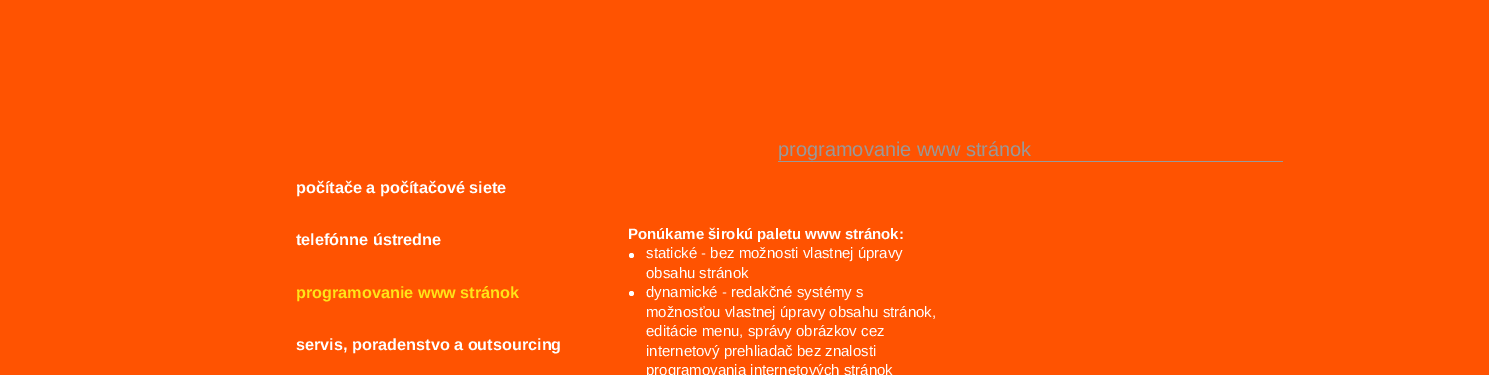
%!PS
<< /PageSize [1489 375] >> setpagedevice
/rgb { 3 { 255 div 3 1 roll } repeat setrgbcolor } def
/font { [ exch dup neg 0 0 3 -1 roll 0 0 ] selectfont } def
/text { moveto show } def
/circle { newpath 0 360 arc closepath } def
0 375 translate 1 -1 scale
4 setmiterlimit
255 83 1 rgb
0 0 1489 375 rectfill
153 153 153 rgb
778 161 505 1 rectfill
255 255 255 rgb
631.5 255.5 2.5 circle fill
631.5 293.5 2.5 circle fill
/LiberationSans-Bold 16.25 font
(počítače a počítačové siete) 296 193 text
(telefónne ústredne) 296 245 text
255 228 24 rgb
(programovanie www stránok) 296 298 text
255 255 255 rgb
(servis, poradenstvo a outsourcing) 296 350 text
/LiberationSans-Regular 20 font
153 153 153 rgb
(programovanie www stránok) 778 156 text
/LiberationSans-Bold 15 font
255 255 255 rgb
(Ponúkame širokú paletu www stránok:) 628 239 text
/LiberationSans-Regular 15 font
(statické - bez možnosti vlastnej úpravy) 646 258 text
(obsahu stránok) 646 278 text
(dynamické - redakčné systémy s) 646 297 text
(možnosťou vlastnej úpravy obsahu stránok,) 646 317 text
(editácie menu, správy obrázkov cez) 646 336 text
(internetový prehliadač bez znalosti) 646 356 text
(programovania internetových stránok) 646 375 text
showpage
